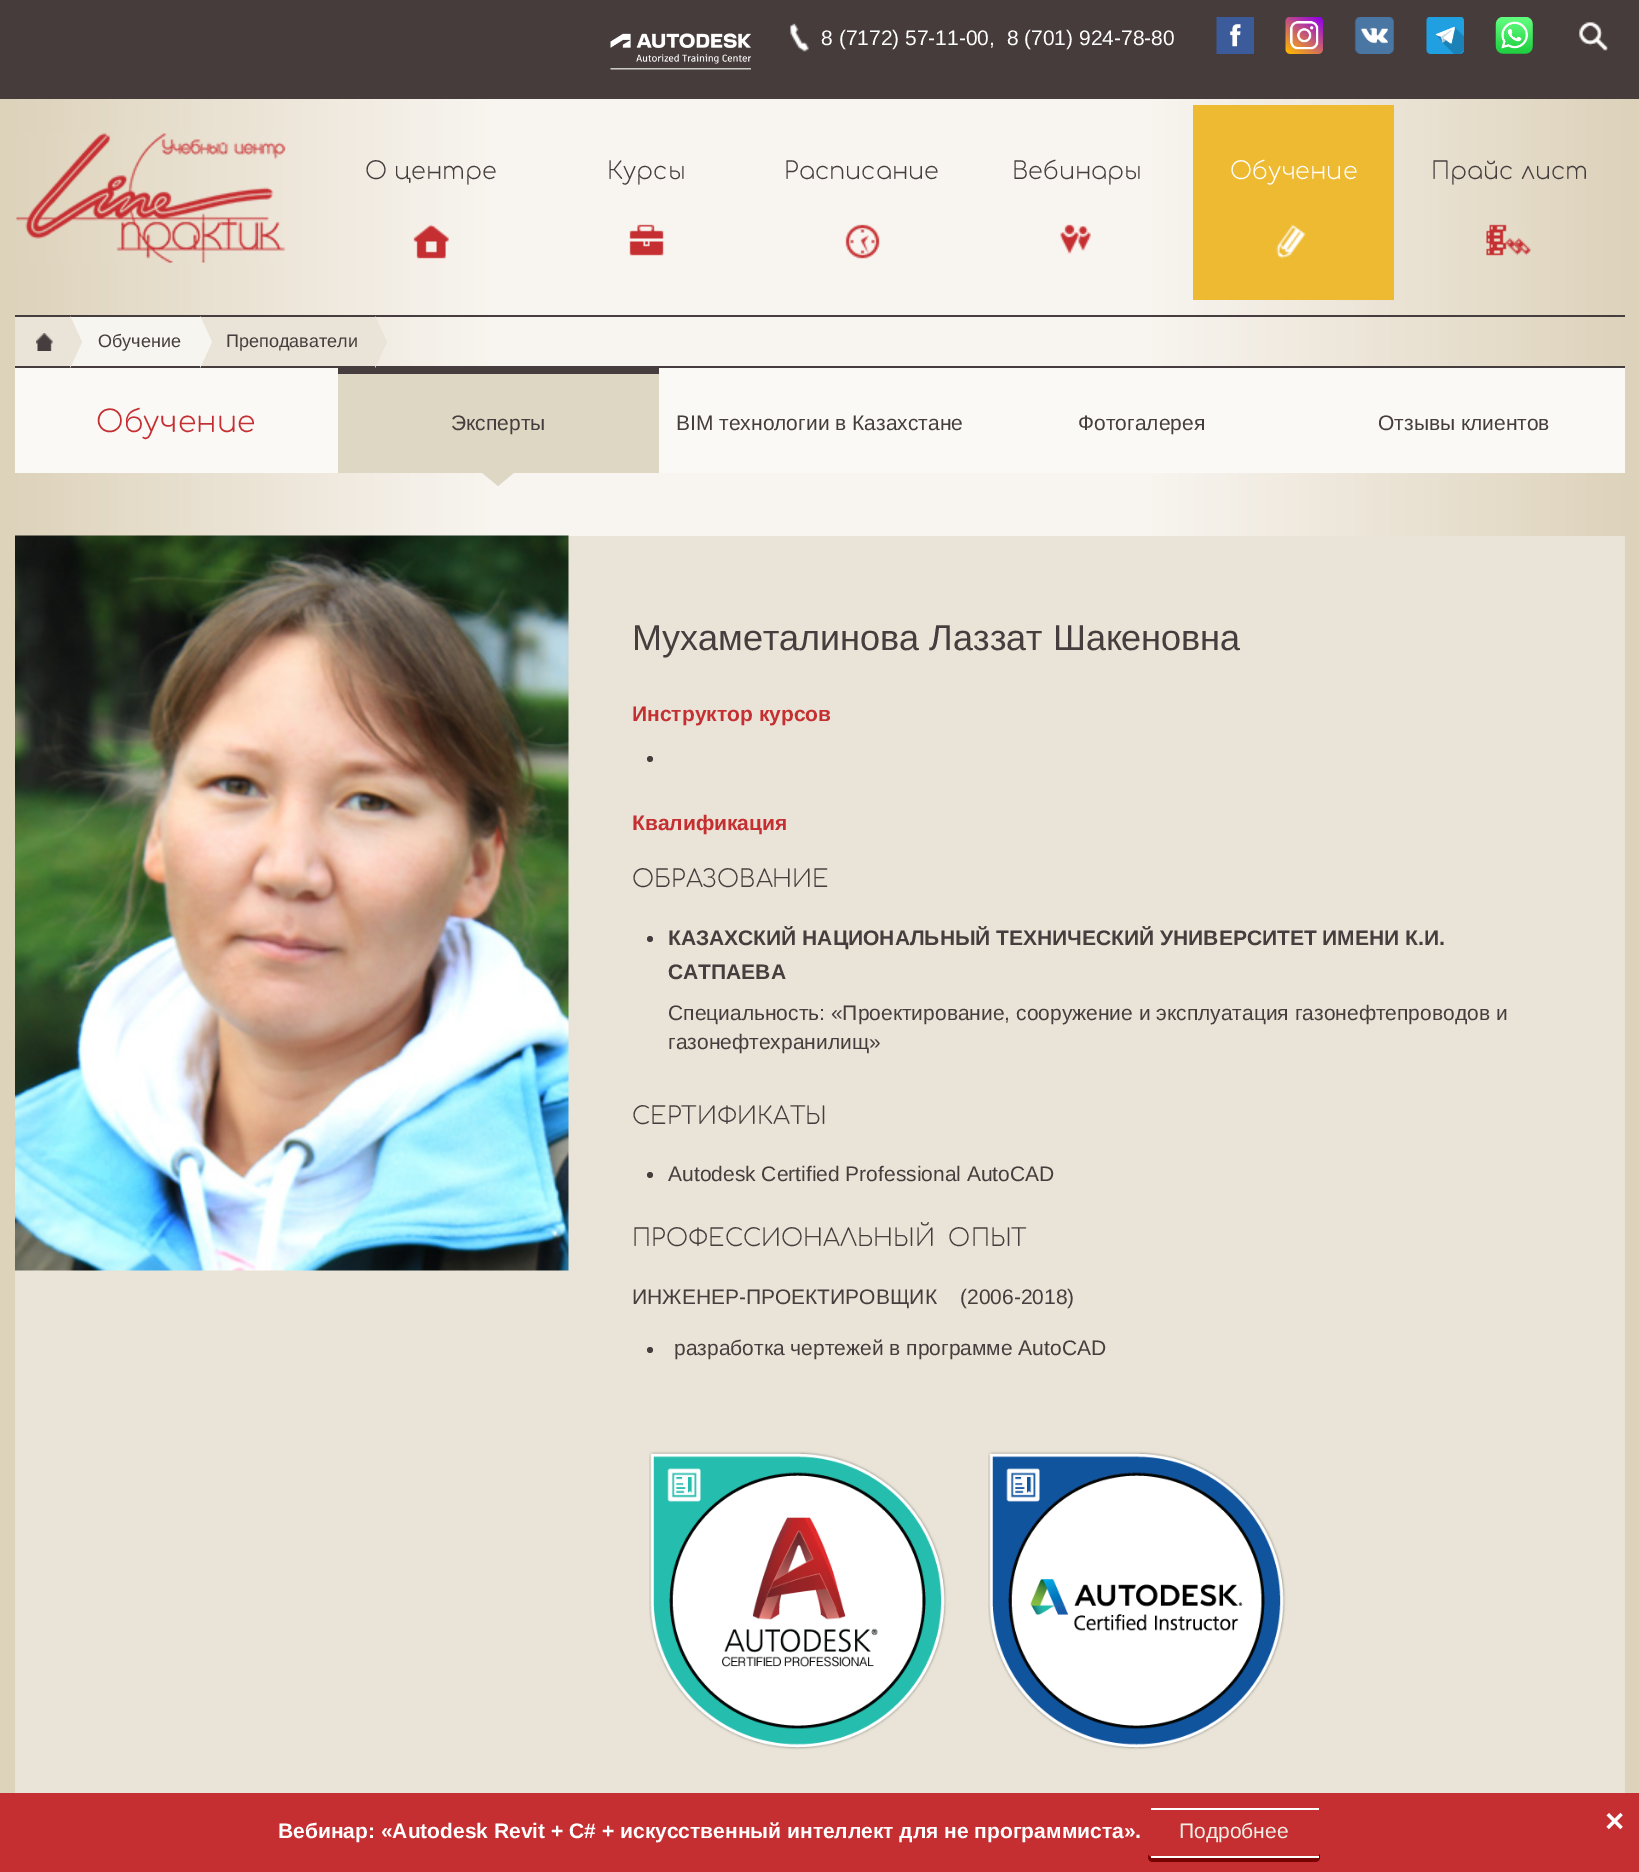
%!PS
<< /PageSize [1639 1872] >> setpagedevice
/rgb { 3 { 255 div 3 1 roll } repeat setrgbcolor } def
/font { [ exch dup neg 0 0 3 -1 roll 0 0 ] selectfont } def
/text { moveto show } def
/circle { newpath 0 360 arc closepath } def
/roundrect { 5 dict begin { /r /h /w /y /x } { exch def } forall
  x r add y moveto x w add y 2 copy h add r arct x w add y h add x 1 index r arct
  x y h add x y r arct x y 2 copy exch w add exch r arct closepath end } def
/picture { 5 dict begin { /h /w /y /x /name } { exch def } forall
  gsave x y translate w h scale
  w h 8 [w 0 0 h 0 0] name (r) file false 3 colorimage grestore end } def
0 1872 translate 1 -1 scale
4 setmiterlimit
255 255 255 rgb
0 0 1639 1872 rectfill
gsave 0 99 moveto 1639 0 rlineto 0 1694 rlineto -1639 0 rlineto closepath clip newpath
<< /ShadingType 2 /ColorSpace /DeviceRGB /Coords [0 936 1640 936] /Extend [true true] /Function << /FunctionType 3 /Domain [0 1] /Functions [<< /FunctionType 2 /Domain [0 1] /C0 [0.867 0.824 0.729] /C1 [0.973 0.961 0.941] /N 1 >> << /FunctionType 2 /Domain [0 1] /C0 [0.973 0.961 0.941] /C1 [0.973 0.961 0.941] /N 1 >> << /FunctionType 2 /Domain [0 1] /C0 [0.973 0.961 0.941] /C1 [0.867 0.824 0.729] /N 1 >>] /Bounds [0.3 0.7] /Encode [0 1 0 1 0 1] >> >> shfill grestore
71 60 60 rgb
0 0 1639 99 rectfill
(img_01.rgb) 610 33 141 37 picture
(img_02.rgb) 790 23 19 29 picture
(img_03.rgb) 1216 17 38 37 picture
(img_04.rgb) 1285 17 38 37 picture
(img_05.rgb) 1354 17 40 37 picture
(img_06.rgb) 1426 17 38 37 picture
(img_07.rgb) 1495 17 38 37 picture
(img_08.rgb) 1579 22 29 29 picture
(img_09.rgb) 1579 22 29 29 picture
(img_10.rgb) 16 133 270 130 picture
(img_11.rgb) 413 224 36 35 picture
(img_12.rgb) 629 224 35 32 picture
(img_13.rgb) 845 224 35 35 picture
(img_14.rgb) 1060 224 31 30 picture
237 186 50 rgb
1193 105 201 195 rectfill
(img_15.rgb) 1276 224 30 35 picture
(img_16.rgb) 1486 224 46 32 picture
70 62 62 rgb
15 315 1610 2 rectfill
15 366 1610 2 rectfill
234 228 216 rgb
15 317 56 49 rectfill
(img_17.rgb) 36 333 17 18 picture
247 245 240 rgb
71 317 129 49 rectfill
234 228 216 rgb
70 368 moveto 0 -52 rlineto 12 26 rlineto closepath fill
200 317 175 49 rectfill
247 245 240 rgb
200 368 moveto 0 -52 rlineto 12 26 rlineto closepath fill
234 228 216 rgb
375 368 moveto 0 -52 rlineto 12 26 rlineto closepath fill
250 249 246 rgb
15 368 1610 105 rectfill
222 215 196 rgb
338 374 321 99 rectfill
70 62 62 rgb
338 368 321 6 rectfill
222 215 196 rgb
480 471 moveto 36 0 rlineto -18 15 rlineto closepath fill
233 228 215 rgb
15 536 1610 1257 rectfill
(img_18.rgb) 15 535 554 736 picture
70 62 62 rgb
650 759 3 circle fill
650 939 3 circle fill
650 1175 3 circle fill
650 1350 3 circle fill
(img_19.rgb) 649 1451 299 299 picture
(img_20.rgb) 988 1451 299 299 picture
198 47 50 rgb
0 1793 1639 79 rectfill
120 1 1 rgb
1148 1855 moveto 0 2 rlineto 0 3 2 5 5 5 rcurveto 162 0 rlineto 3 0 5 -2 5 -5 rcurveto 0 -5 rlineto 0 3 -2 5 -4 5 rcurveto -164 0 rlineto -2 0 -3 -1 -4 -2 rcurveto closepath fill
198 47 50 rgb
1148 1808 172 49 5 roundrect fill
254 254 253 rgb
1151 1808 168 2 rectfill
1151 1856 168 2 rectfill
/LiberationSans-Regular 21 font
255 255 255 rgb
(8 \(7172\) 57-11-00,  8 \(701\) 924-78-80) 821 45 text
/Comfortaa-Light 24 font
70 62 62 rgb
(О центре) 365 179 text
(Курсы) 607 179 text
(Расписание) 784 179 text
(Вебинары) 1012 179 text
255 255 255 rgb
(Обучение) 1230 179 text
70 62 62 rgb
(Прайс лист) 1431 179 text
/LiberationSans-Regular 18 font
(Обучение) 98 347 text
(Преподаватели) 226 347 text
/Comfortaa-Light 30 font
198 47 50 rgb
(Обучение) 96 432 text
/LiberationSans-Regular 21 font
70 62 62 rgb
(Эксперты) 451 430 text
(BIM технологии в Казахстане) 676 430 text
(Фотогалерея) 1078 430 text
(Отзывы клиентов) 1378 430 text
/LiberationSans-Regular 36 font
(Мухаметалинова Лаззат Шакеновна) 632 650 text
/LiberationSans-Bold 21 font
198 47 50 rgb
(Инструктор курсов) 632 721 text
(Квалификация) 632 830 text
/Comfortaa-Light 24 font
70 62 62 rgb
(ОБРАЗОВАНИЕ) 632 887 text
/LiberationSans-Bold 21 font
(КАЗАХСКИЙ НАЦИОНАЛЬНЫЙ ТЕХНИЧЕСКИЙ УНИВЕРСИТЕТ ИМЕНИ К.И.) 668 945 text
(САТПАЕВА) 668 979 text
/LiberationSans-Regular 21 font
(Специальность: «Проектирование, сооружение и эксплуатация газонефтепроводов и) 668 1020 text
(газонефтехранилищ») 668 1049 text
/Comfortaa-Light 24 font
(СЕРТИФИКАТЫ) 632 1124 text
/LiberationSans-Regular 21 font
(Autodesk Certified Professional AutoCAD) 668 1181 text
/Comfortaa-Light 24 font
(ПРОФЕССИОНАЛЬНЫЙ  ОПЫТ) 632 1246 text
/LiberationSans-Regular 21 font
(ИНЖЕНЕР-ПРОЕКТИРОВЩИК    \(2006‐2018\)) 632 1304 text
(разработка чертежей в программе AutoCAD) 674 1355 text
/LiberationSans-Bold 21 font
255 255 255 rgb
(Вебинар: «Autodesk Revit + С# + искусственный интеллект для не программиста».) 278 1838 text
/LiberationSans-Regular 21 font
241 238 230 rgb
(Подробнее) 1179 1838 text
/LiberationSans-Bold 33 font
255 255 255 rgb
(×) 1605 1832 text
showpage
